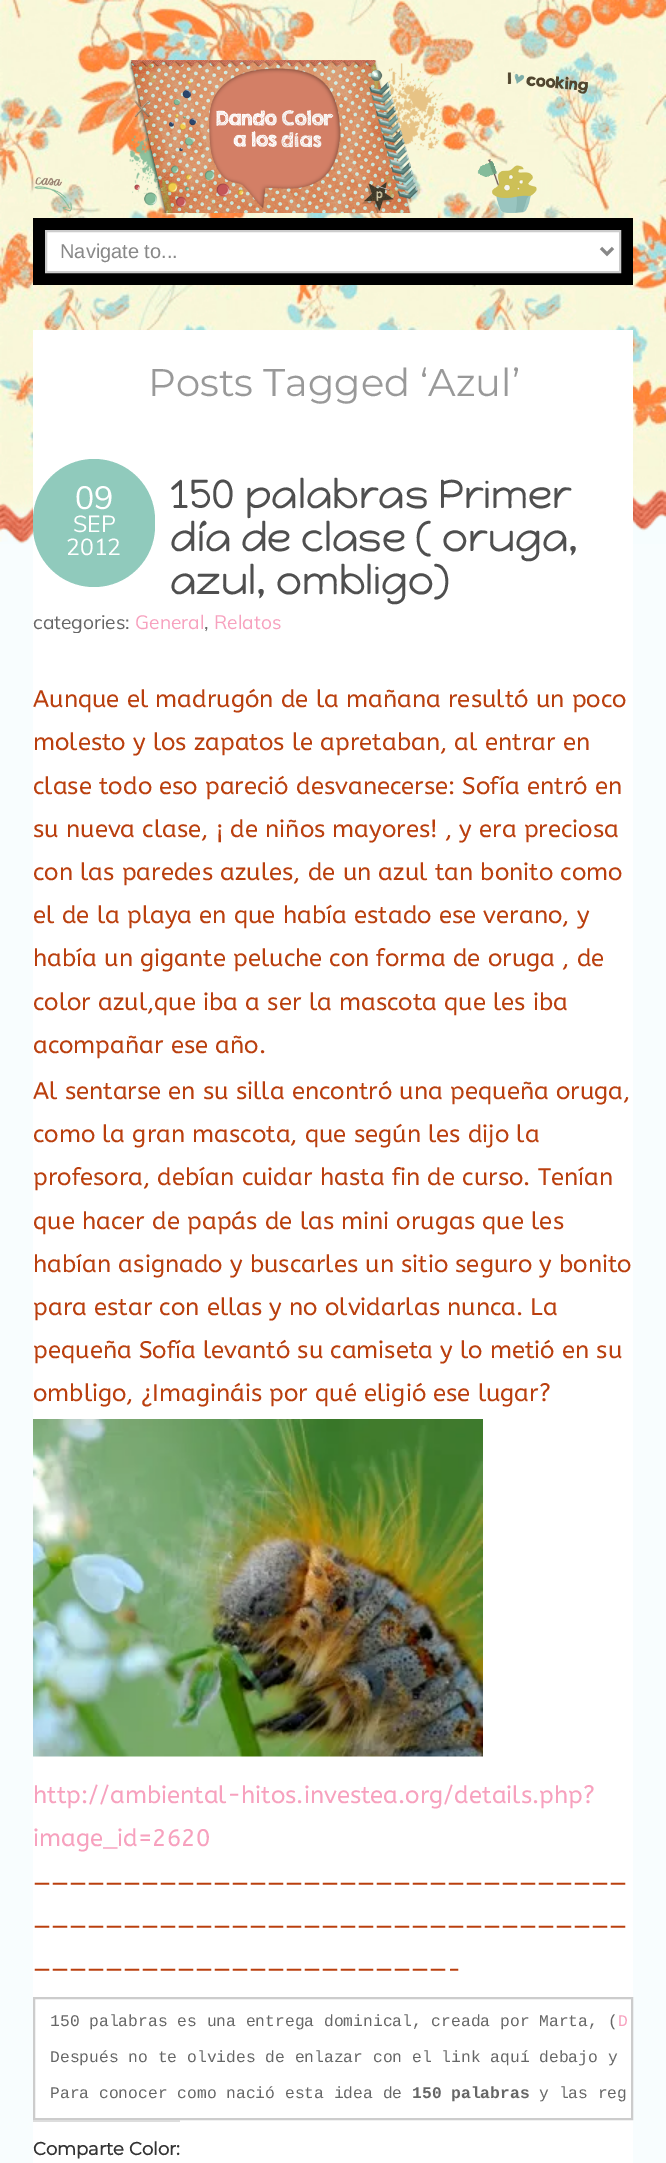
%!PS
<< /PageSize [666 2163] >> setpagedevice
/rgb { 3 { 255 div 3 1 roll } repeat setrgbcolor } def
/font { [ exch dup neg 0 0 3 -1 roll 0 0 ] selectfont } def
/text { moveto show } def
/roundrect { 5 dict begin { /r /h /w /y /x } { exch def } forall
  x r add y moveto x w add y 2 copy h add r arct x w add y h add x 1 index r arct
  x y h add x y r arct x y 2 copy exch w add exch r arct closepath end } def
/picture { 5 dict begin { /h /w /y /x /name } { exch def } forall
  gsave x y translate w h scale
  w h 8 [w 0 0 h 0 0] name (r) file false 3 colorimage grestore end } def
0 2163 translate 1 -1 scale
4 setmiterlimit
248 253 254 rgb
0 0 666 2163 rectfill
(img_01.rgb) 0 0 666 544 picture
(img_02.rgb) 34 60 555 153 picture
0 0 0 rgb
33 218 600 67 rectfill
255 255 255 rgb
46 231 moveto 574 0 rlineto 0 41 rlineto -574 0 rlineto closepath gsave fill grestore
204 204 204 rgb
2 setlinewidth
stroke
136 136 136 rgb
3 setlinewidth
601 248 moveto 6 6 rlineto 6 -6 rlineto stroke
255 255 255 rgb
33 330 600 1833 rectfill
144 202 188 rgb
33 459 122 128 61 roundrect fill
(img_03.rgb) 33 1419 450 338 picture
204 204 204 rgb
2 setlinewidth
34 1998 598 121 rectstroke
221 221 221 rgb
33 2120 147 2 rectfill
/LiberationSans-Regular 20 font
136 136 136 rgb
(Navigate to...) 60 258 text
/Montserrat-Thin 38.5 font
153 153 153 rgb
(Posts Tagged ‘Azul’) 148 396 text
/Muli-Regular 32 font
255 255 255 rgb
(09) 75 509 text
/Muli-Regular 23 font
(SEP) 73 532 text
(2012) 66 555 text
/HappyMonkey-Regular 40.5 font
79 79 79 rgb
(150 palabras Primer) 170 508 text
(día de clase \( oruga,) 170 551 text
(azul, ombligo\)) 170 594 text
gsave
33 459 600 174 rectclip
/Muli-Regular 19.25 font
102 102 102 rgb
(categories:) 33 629 text
grestore
/Muli-Regular 19.25 font
247 161 190 rgb
(General) 135 629 text
102 102 102 rgb
(,) 204 629 text
247 161 190 rgb
(Relatos) 214 629 text
/ABeeZee-Regular 24 font
186 63 14 rgb
(Aunque el madrugón de la mañana resultó un poco) 33 707 text
(molesto y los zapatos le apretaban, al entrar en) 33 750 text
(clase todo eso pareció desvanecerse: Sofía entró en) 33 794 text
(su nueva clase, ¡ de niños mayores! , y era preciosa) 33 837 text
(con las paredes azules, de un azul tan bonito como) 33 880 text
(el de la playa en que había estado ese verano, y) 33 923 text
(había un gigante peluche con forma de oruga , de) 33 966 text
(color azul,que iba a ser la mascota que les iba) 33 1010 text
(acompañar ese año.) 33 1053 text
(Al sentarse en su silla encontró una pequeña oruga,) 33 1099 text
(como la gran mascota, que según les dijo la) 33 1142 text
(profesora, debían cuidar hasta fin de curso. Tenían) 33 1185 text
(que hacer de papás de las mini orugas que les) 33 1229 text
(habían asignado y buscarles un sitio seguro y bonito) 33 1272 text
(para estar con ellas y no olvidarlas nunca. La) 33 1315 text
(pequeña Sofía levantó su camiseta y lo metió en su) 33 1358 text
(ombligo, ¿Imagináis por qué eligió ese lugar?) 33 1401 text
247 161 190 rgb
(http://ambiental-hitos.investea.org/details.php?) 33 1803 text
(image_id=2620) 33 1846 text
186 63 14 rgb
(—————————————————————————————————) 33 1892 text
(—————————————————————————————————) 33 1935 text
(———————————————————————-) 33 1978 text
/LiberationMono-Regular 16.3 font
102 102 102 rgb
(150 palabras es una entrega dominical, creada por Marta, \() 50 2026 text
247 161 190 rgb
(D) 618 2026 text
102 102 102 rgb
(Después no te olvides de enlazar con el link aquí debajo y) 50 2062 text
(Para conocer como nació esta idea de) 50 2098 text
/LiberationMono-Bold 16.3 font
(150 palabras) 412 2098 text
/LiberationMono-Regular 16.3 font
(y las reg) 539 2098 text
/Montserrat-Bold 18 font
51 51 51 rgb
(Comparte Color:) 33 2155 text
showpage
